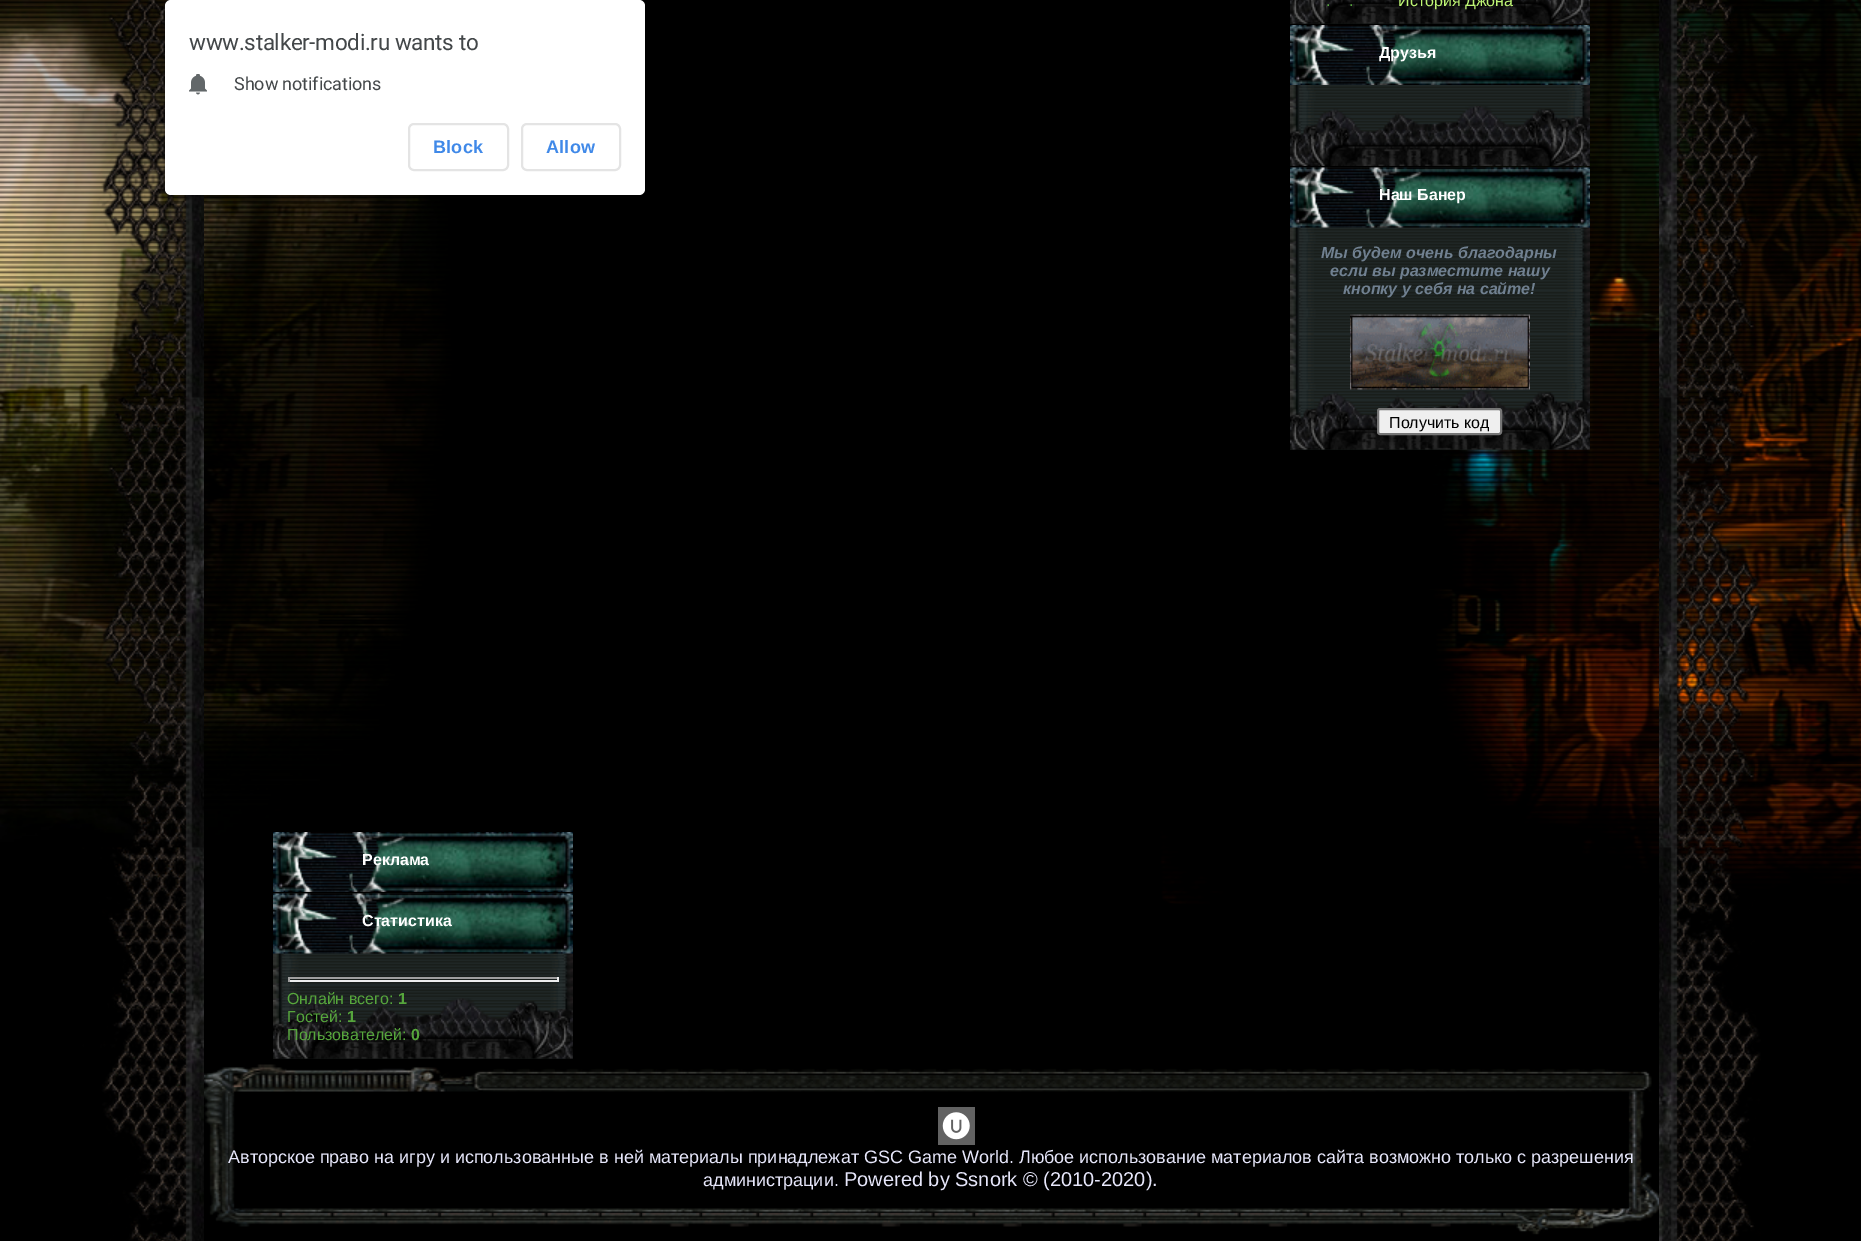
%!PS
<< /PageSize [1861 1241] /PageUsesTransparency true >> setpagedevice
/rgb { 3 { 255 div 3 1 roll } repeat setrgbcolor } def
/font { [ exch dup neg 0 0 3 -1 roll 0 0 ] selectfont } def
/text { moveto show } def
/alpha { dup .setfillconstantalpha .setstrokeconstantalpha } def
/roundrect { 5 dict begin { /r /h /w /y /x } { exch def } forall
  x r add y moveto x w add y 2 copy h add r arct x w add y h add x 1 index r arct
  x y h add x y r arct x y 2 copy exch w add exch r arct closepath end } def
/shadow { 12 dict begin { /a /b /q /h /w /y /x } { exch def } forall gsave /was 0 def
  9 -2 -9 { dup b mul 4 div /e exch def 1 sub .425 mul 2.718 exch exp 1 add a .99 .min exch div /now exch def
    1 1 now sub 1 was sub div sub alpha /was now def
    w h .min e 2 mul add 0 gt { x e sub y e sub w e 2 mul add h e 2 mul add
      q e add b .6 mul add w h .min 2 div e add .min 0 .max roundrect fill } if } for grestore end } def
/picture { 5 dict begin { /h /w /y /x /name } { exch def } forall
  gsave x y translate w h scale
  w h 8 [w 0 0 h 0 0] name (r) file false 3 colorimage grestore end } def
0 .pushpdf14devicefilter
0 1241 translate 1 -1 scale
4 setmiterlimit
0 0 0 rgb
0 0 1861 1241 rectfill
(img_01.rgb) 0 0 1861 904 picture
(img_02.rgb) 82 0 122 1241 picture
(img_03.rgb) 1290 23 300 1 picture
(img_04.rgb) 1290 0 300 24 picture
(img_05.rgb) 1290 85 300 21 picture
(img_06.rgb) 1290 25 300 60 picture
(img_07.rgb) 1290 106 300 60 picture
(img_08.rgb) 1290 167 300 283 picture
(img_09.rgb) 1290 167 300 61 picture
(img_10.rgb) 1290 389 300 61 picture
(img_11.rgb) 1350 314 180 76 picture
239 239 239 rgb
1378 409 123 25 2 roundrect gsave fill grestore
118 118 118 rgb
2 setlinewidth
stroke
(img_12.rgb) 273 832 300 60 picture
(img_13.rgb) 273 893 300 166 picture
(img_14.rgb) 273 893 300 61 picture
(img_15.rgb) 273 998 300 61 picture
159 159 159 rgb
288 977 270 2 rectfill
238 238 238 rgb
557 977 2 5 rectfill
288 980 270 2 rectfill
159 159 159 rgb
288 977 2 5 rectfill
(img_16.rgb) 204 1064 1455 171 picture
(img_17.rgb) 938 1107 37 38 picture
(img_18.rgb) 1659 0 102 1241 picture
0 0 0 rgb
162 0 486 201 9 4.5 0.15 shadow
165 2 480 195 6 1.5 0.3 shadow
255 255 255 rgb
165 0 480 195 6 roundrect fill
(img_19.rgb) 189 74 18 21 picture
228 228 228 rgb
409 124 99 46 5 roundrect stroke
522 124 98 46 5 roundrect stroke
/LiberationSans-Regular 16 font
86 166 60 rgb
(.) 1326 6 text
(.) 1349 6 text
190 245 116 rgb
(История Джона) 1398 6 text
/LiberationSans-Bold 16 font
255 255 255 rgb
(Друзья) 1379 58 text
(Наш Банер) 1379 200 text
/LiberationSans-BoldItalic 16 font
112 128 144 rgb
(Мы будем очень благодарны) 1321 258 text
(если вы разместите нашу) 1330 276 text
(кнопку у себя на сайте!) 1343 294 text
/LiberationSans-Regular 16 font
0 0 0 rgb
(Получить код) 1389 428 text
/LiberationSans-Bold 16 font
255 255 255 rgb
(Реклама) 362 865 text
(Статистика) 362 926 text
/LiberationSans-Regular 16 font
86 166 60 rgb
(Онлайн всего:) 287 1004 text
/LiberationSans-Bold 16 font
(1) 398 1004 text
/LiberationSans-Regular 16 font
(Гостей:) 287 1022 text
/LiberationSans-Bold 16 font
(1) 347 1022 text
/LiberationSans-Regular 16 font
(Пользователей:) 287 1040 text
/LiberationSans-Bold 16 font
(0) 411 1040 text
/LiberationSans-Regular 18 font
230 230 250 rgb
(Авторское право на игру и использованные в ней материалы принадлежат GSC Game World. Любое использование материалов сайта возможно только с разрешения) 228 1163 text
(администрации.) 703 1186 text
/LiberationSans-Regular 20 font
(Powered by Ssnork © \(2010-2020\).) 844 1186 text
/Roboto-Regular 22.5 font
67 71 73 rgb
189 50 moveto -0.35 0 (www.stalker-modi.ru wants to) ashow
/Roboto-Regular 18 font
234 90 moveto -0.1 0 (Show notifications) ashow
/LiberationSans-Bold 18 font
64 137 232 rgb
433 153 moveto 0.25 0 (Block) ashow
546 153 moveto 0.25 0 (Allow) ashow
.poppdf14devicefilter showpage
